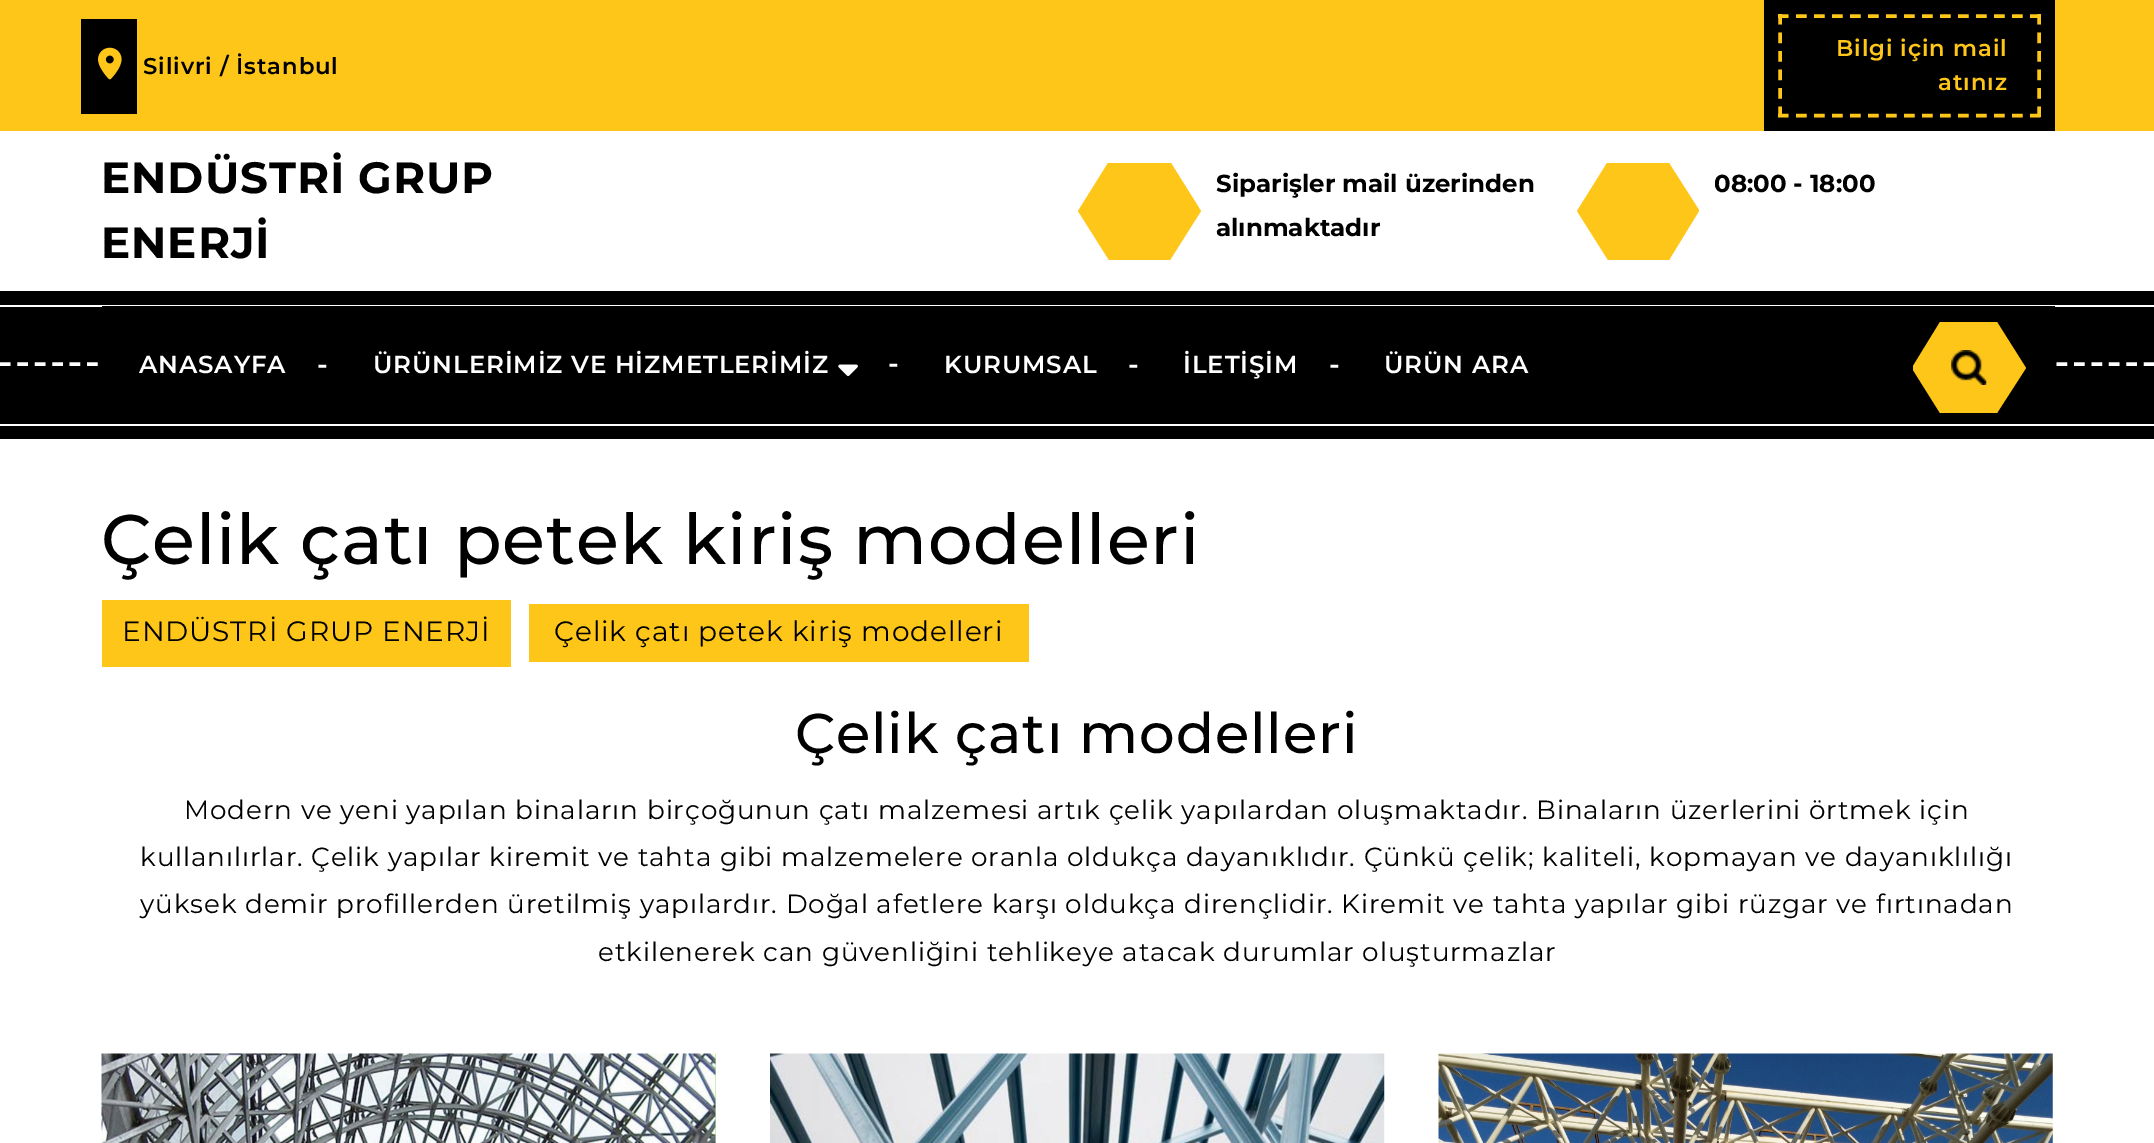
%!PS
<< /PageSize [2154 1143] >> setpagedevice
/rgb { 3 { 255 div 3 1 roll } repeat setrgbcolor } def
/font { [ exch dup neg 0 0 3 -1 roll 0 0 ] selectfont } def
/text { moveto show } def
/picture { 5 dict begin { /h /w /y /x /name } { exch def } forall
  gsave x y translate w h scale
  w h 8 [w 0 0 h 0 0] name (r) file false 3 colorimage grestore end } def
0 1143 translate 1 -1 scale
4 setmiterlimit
255 255 255 rgb
0 0 2154 1143 rectfill
255 198 26 rgb
0 0 2154 131 rectfill
0 0 0 rgb
81 19 56 95 rectfill
(img_01.rgb) 98 47 24 33 picture
1764 0 291 131 rectfill
255 198 26 rgb
3.5 setlinewidth
[10.5 7.51] 0 setdash
1778 16 moveto 262.5 0 rlineto stroke
[10.5 8.05] 0 setdash
2039 14 moveto 0 103 rlineto stroke
[10.5 7.51] 0 setdash
1778 115.5 moveto 262.5 0 rlineto stroke
[10.5 8.05] 0 setdash
1780 14 moveto 0 103 rlineto stroke
1171 163 moveto 30 48 rlineto -31 49 rlineto -61 0 rlineto -31 -49 rlineto 30 -48 rlineto closepath fill
1577 211 moveto 30 -48 rlineto 62 0 rlineto 30 47 rlineto 0 1 rlineto -30 49 rlineto -61 0 rlineto closepath fill
0 0 0 rgb
0 291 2154 148 rectfill
255 255 255 rgb
0 305 2154 2 rectfill
0 424 2154 2 rectfill
[10.5 6.93] 0 setdash
0 364 moveto 2154 0 rlineto stroke
0 0 0 rgb
102 306 1953 60 rectfill
(img_02.rgb) 838 364 20 12 picture
255 198 26 rgb
1940 322 moveto 57 0 rlineto 29 46 rlineto -29 45 rlineto -57 0 rlineto -27 -43 rlineto 0 -4 rlineto closepath fill
(img_03.rgb) 1951 350 36 35 picture
102 600 409 67 rectfill
529 604 500 58 rectfill
(img_04.rgb) 101 1053 615 90 picture
(img_05.rgb) 770 1053 615 90 picture
(img_06.rgb) 1438 1053 615 90 picture
/Montserrat-SemiBold 22.75 font
0 0 0 rgb
143 74 moveto 0.89 0 (Silivri / İstanbul) ashow
255 198 26 rgb
1836 56 moveto 0.89 0 (Bilgi için mail) ashow
1938 90 moveto 0.89 0 (atınız) ashow
/Montserrat-Bold 43.75 font
0 0 0 rgb
101 193 moveto 0.89 0 (ENDÜSTRİ GRUP) ashow
101 258 moveto 0.89 0 (ENERJİ) ashow
/Montserrat-Bold 24.5 font
(Siparişler mail üzerinden) 1216 192 text
(alınmaktadır) 1216 236 text
(08:00 - 18:00) 1714 192 text
/Montserrat-SemiBold 24.5 font
255 255 255 rgb
139 373 moveto 0.89 0 (ANASAYFA) ashow
/Montserrat-SemiBold 28 font
317 374 moveto 0.89 0 (-) ashow
/Montserrat-SemiBold 24.5 font
373 373 moveto 0.89 0 (ÜRÜNLERİMİZ VE HİZMETLERİMİZ) ashow
/Montserrat-SemiBold 28 font
888 373 moveto 0.89 0 (-) ashow
/Montserrat-SemiBold 24.5 font
944 373 moveto 0.89 0 (KURUMSAL) ashow
/Montserrat-SemiBold 28 font
1128 374 moveto 0.89 0 (-) ashow
/Montserrat-SemiBold 24.5 font
1183 373 moveto 0.89 0 (İLETİŞİM) ashow
/Montserrat-SemiBold 28 font
1329 374 moveto 0.89 0 (-) ashow
/Montserrat-SemiBold 24.5 font
1384 373 moveto 0.89 0 (ÜRÜN ARA) ashow
/Montserrat-Medium 70 font
0 0 0 rgb
101 564 moveto 0.89 0 (Çelik çatı petek kiriş modelleri) ashow
/Montserrat-Regular 28 font
122 641 moveto 0.89 0 (ENDÜSTRİ GRUP ENERJİ) ashow
554 641 moveto 0.89 0 (Çelik çatı petek kiriş modelleri) ashow
/Montserrat-Medium 56 font
795 753 moveto 0.89 0 (Çelik çatı modelleri) ashow
/Montserrat-Regular 26.25 font
184 819 moveto 0.89 0 (Modern ve yeni yapılan binaların birçoğunun çatı malzemesi artık çelik yapılardan oluşmaktadır. Binaların üzerlerini örtmek için) ashow
140 866 moveto 0.89 0 (kullanılırlar. Çelik yapılar kiremit ve tahta gibi malzemelere oranla oldukça dayanıklıdır. Çünkü çelik; kaliteli, kopmayan ve dayanıklılığı) ashow
140 913 moveto 0.89 0 (yüksek demir profillerden üretilmiş yapılardır. Doğal afetlere karşı oldukça dirençlidir. Kiremit ve tahta yapılar gibi rüzgar ve fırtınadan) ashow
598 961 moveto 0.89 0 (etkilenerek can güvenliğini tehlikeye atacak durumlar oluşturmazlar) ashow
showpage
